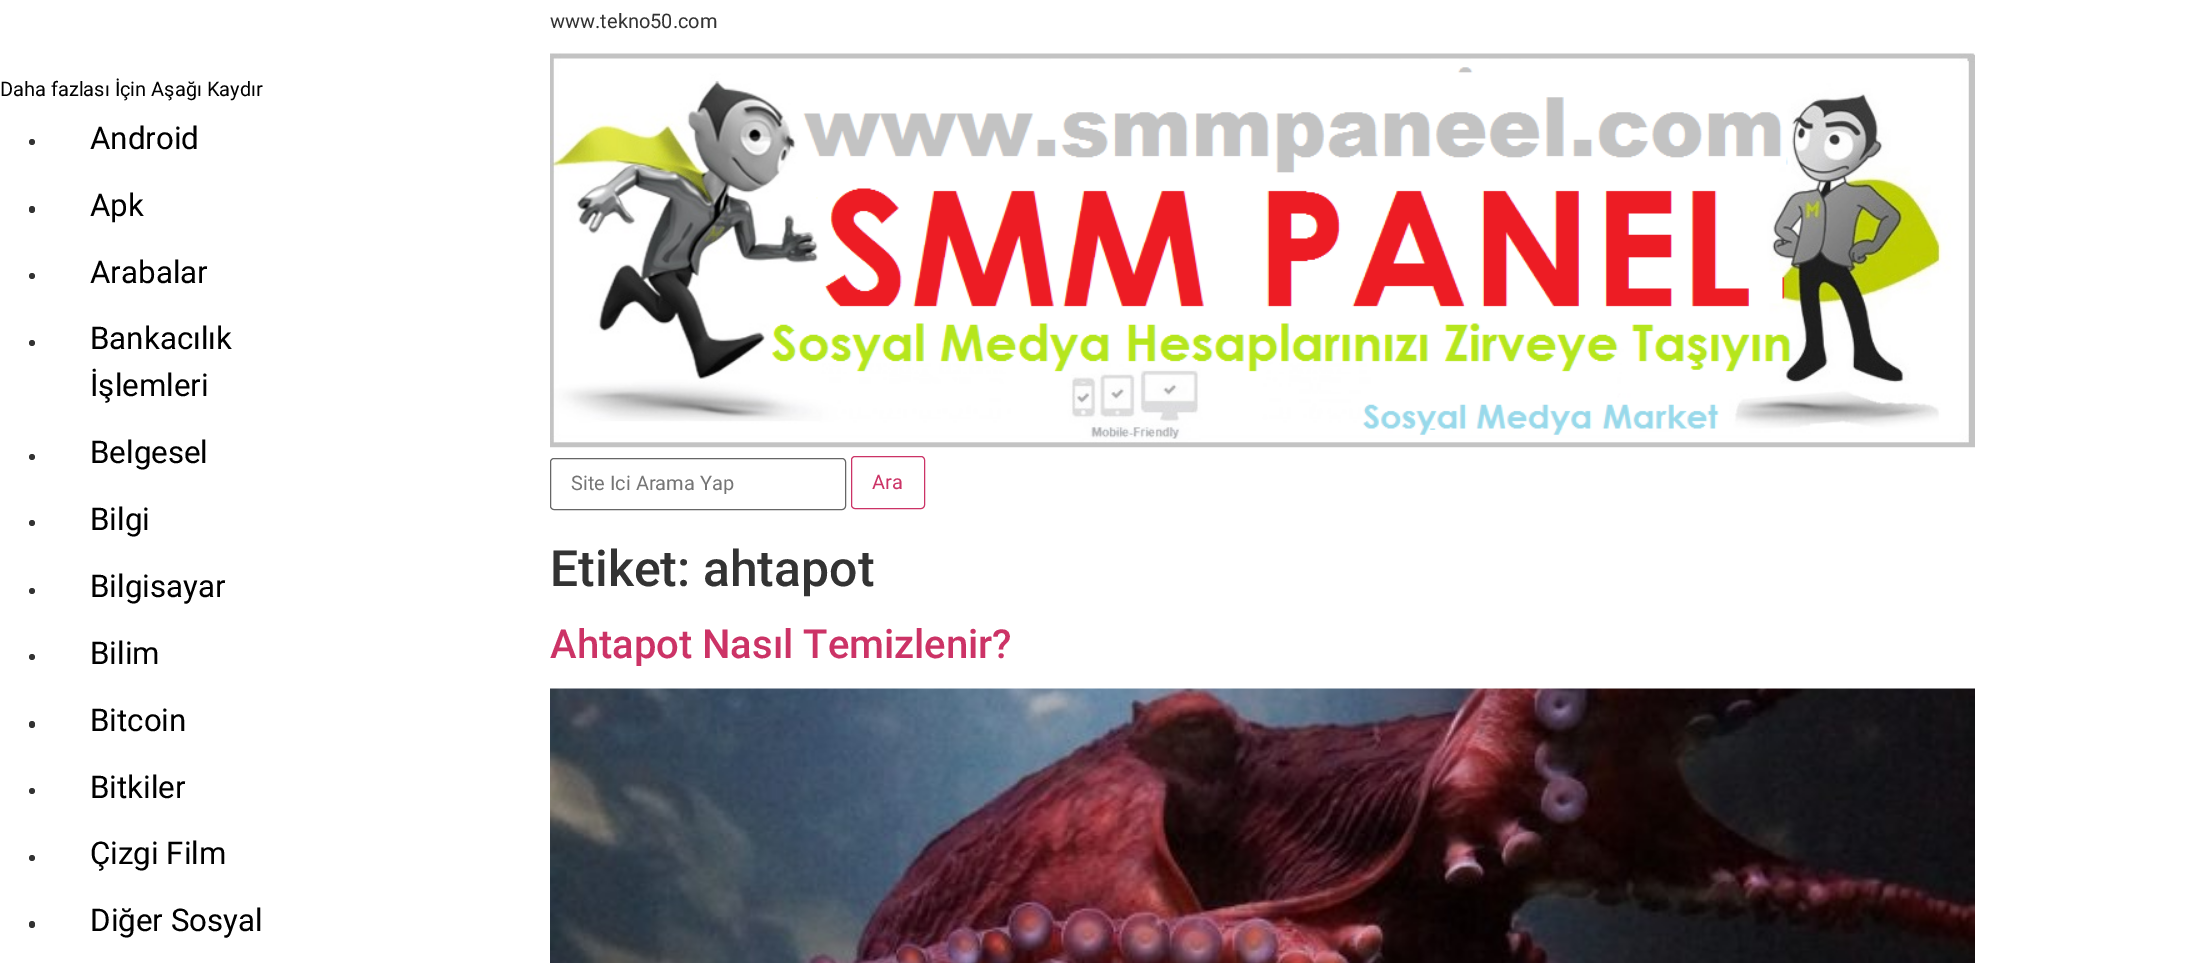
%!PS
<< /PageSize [2199 963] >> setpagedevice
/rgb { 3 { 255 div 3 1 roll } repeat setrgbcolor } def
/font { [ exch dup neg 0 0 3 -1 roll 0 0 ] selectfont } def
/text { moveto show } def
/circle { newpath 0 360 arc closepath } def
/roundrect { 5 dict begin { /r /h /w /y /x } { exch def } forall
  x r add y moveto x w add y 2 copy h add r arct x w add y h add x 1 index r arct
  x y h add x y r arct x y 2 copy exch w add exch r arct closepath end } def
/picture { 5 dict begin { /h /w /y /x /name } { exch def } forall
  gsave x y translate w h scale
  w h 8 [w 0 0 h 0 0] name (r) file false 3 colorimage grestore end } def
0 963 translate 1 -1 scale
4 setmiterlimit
255 255 255 rgb
0 0 2199 963 rectfill
51 51 51 rgb
32 142 3 circle fill
29 206 6 7 3 roundrect fill
32 276 3 circle fill
32 343 3 circle fill
32 457 3 circle fill
32 523 3 circle fill
32 591 3 circle fill
32 657 3 circle fill
29 721 6 7 3 roundrect fill
32 791 3 circle fill
32 858 3 circle fill
29 921 6 7 3 roundrect fill
(img_01.rgb) 550 53 1425 395 picture
102 102 102 rgb
550.5 458.5 295 51 3.5 roundrect stroke
204 51 102 rgb
851.5 456.5 73 52 3.5 roundrect stroke
(img_02.rgb) 550 688 1425 275 picture
/Roboto-Regular 20 font
0 0 0 rgb
(Daha fazlası İçin Aşağı Kaydır) 0 96 text
/Roboto-Regular 31.25 font
(Android) 90 149 text
(Apk) 90 216 text
(Arabalar) 90 283 text
(Bankacılık) 90 349 text
(İşlemleri) 90 396 text
(Belgesel) 90 463 text
(Bilgi) 90 530 text
(Bilgisayar) 90 597 text
(Bilim) 90 664 text
(Bitcoin) 90 731 text
(Bitkiler) 90 798 text
(Çizgi Film) 90 864 text
(Diğer Sosyal) 90 931 text
/Roboto-Regular 20 font
51 51 51 rgb
(www.tekno50.com) 550 28 text
117 117 117 rgb
(Site Ici Arama Yap) 571 490 text
204 51 102 rgb
(Ara) 872 489 text
/Roboto-Medium 50 font
51 51 51 rgb
(Etiket: ahtapot) 550 586 text
/Roboto-Medium 40 font
204 51 102 rgb
(Ahtapot Nasıl Temizlenir?) 550 658 text
showpage
